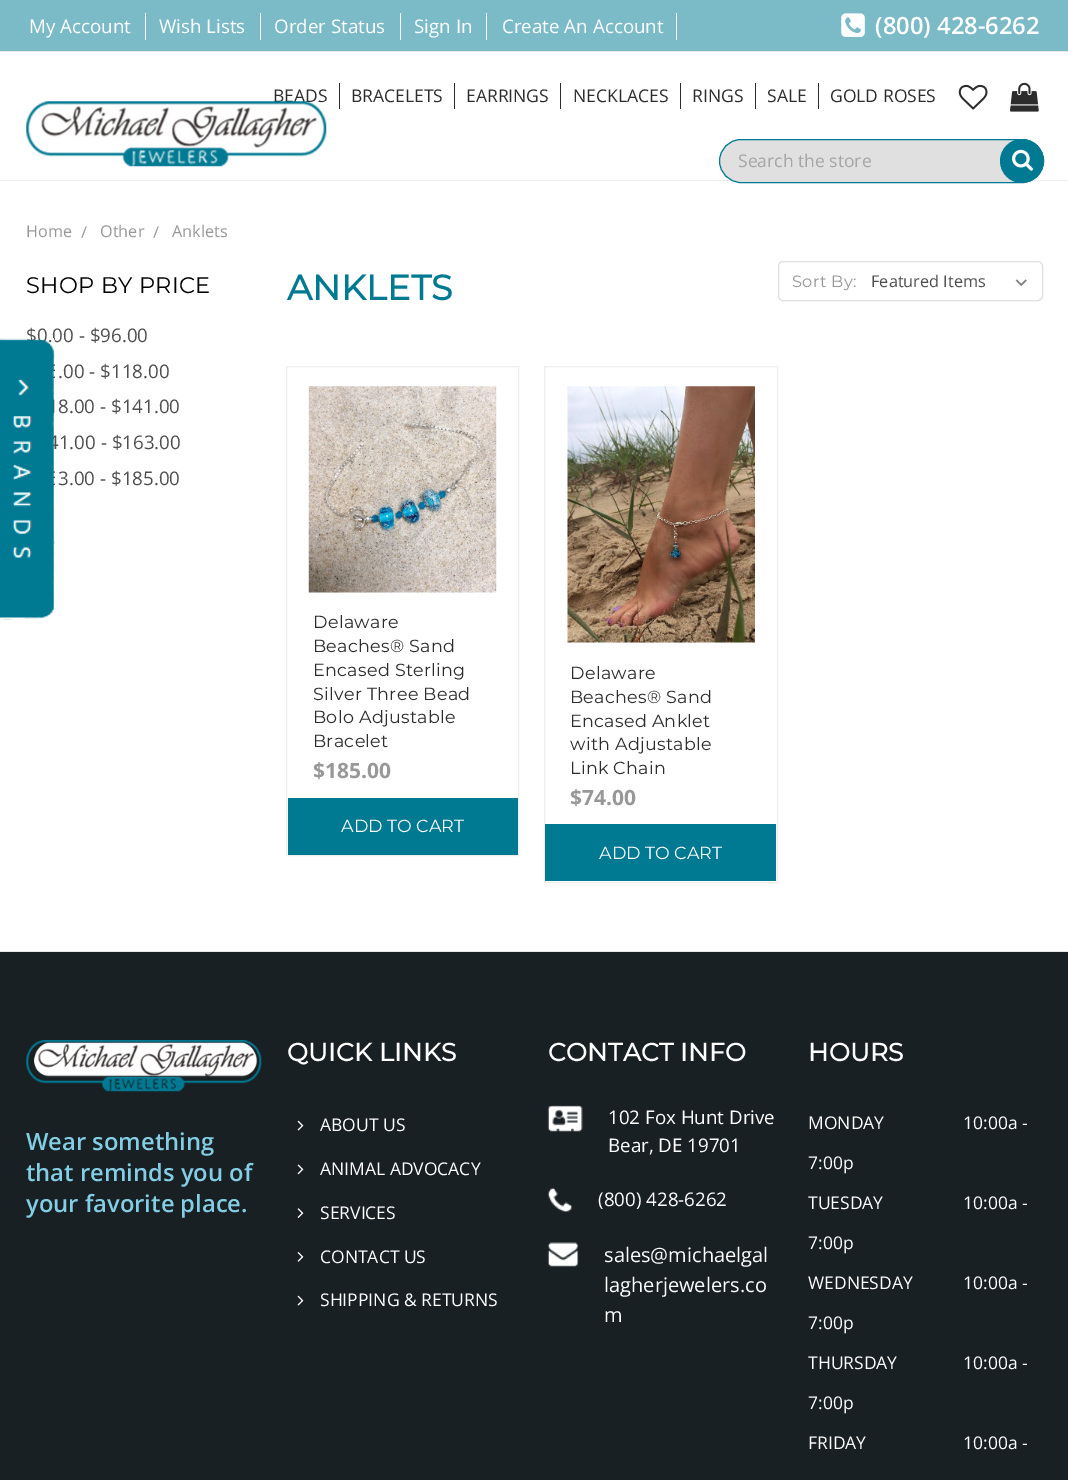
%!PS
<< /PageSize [1068 1480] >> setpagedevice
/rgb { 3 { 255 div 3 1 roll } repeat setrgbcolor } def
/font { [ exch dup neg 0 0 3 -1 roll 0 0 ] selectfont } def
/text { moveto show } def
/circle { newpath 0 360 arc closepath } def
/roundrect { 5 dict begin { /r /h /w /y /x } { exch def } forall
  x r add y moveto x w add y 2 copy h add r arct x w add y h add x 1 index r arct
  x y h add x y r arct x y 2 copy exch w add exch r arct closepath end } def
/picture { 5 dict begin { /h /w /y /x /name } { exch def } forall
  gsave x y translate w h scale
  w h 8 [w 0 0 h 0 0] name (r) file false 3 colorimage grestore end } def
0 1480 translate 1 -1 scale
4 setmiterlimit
255 255 255 rgb
0 0 1068 1480 rectfill
232 232 232 rgb
0 51 1068 1 rectfill
123 186 199 rgb
0 0 1068 51 rectfill
255 255 255 rgb
145 13 1 27 rectfill
260 13 1 27 rectfill
400 13 1 27 rectfill
486 13 1 27 rectfill
676 13 1 27 rectfill
(img_01.rgb) 841 13 24 24 picture
44 44 44 rgb
339 83 1 26 rectfill
454 83 1 26 rectfill
560 83 1 26 rectfill
680 83 1 26 rectfill
755 83 1 26 rectfill
818 83 1 26 rectfill
(img_02.rgb) 958 84 30 26 picture
(img_03.rgb) 1010 82 29 30 picture
238 238 238 rgb
0 180 1068 1 rectfill
224 224 224 rgb
719.5 139.5 324 43 21.5 roundrect gsave fill grestore
0 122 147 rgb
stroke
1022 161 22 circle fill
(img_05.rgb) 1012 149 21 22 picture
223 223 223 rgb
778.5 261.5 264 39 4.5 roundrect stroke
(img_06.rgb) 1015 279 12 8 picture
238 238 238 rgb
286.5 366.5 232 489 rectstroke
(img_07.rgb) 308 386 189 207 picture
0 122 147 rgb
288 798 230 57 rectfill
238 238 238 rgb
544.5 366.5 233 516 rectstroke
(img_08.rgb) 567 386 188 257 picture
0 122 147 rgb
545 824 231 57 rectfill
25 32 36 rgb
0 952 1068 528 rectfill
232 232 232 rgb
0 951 1068 1 rectfill
(img_10.rgb) 26 1040 236 52 picture
(img_11.rgb) 297 1120 7 11 picture
(img_12.rgb) 297 1164 7 11 picture
(img_13.rgb) 297 1208 7 10 picture
(img_14.rgb) 297 1252 7 10 picture
(img_11.rgb) 297 1295 7 11 picture
(img_15.rgb) 547 1105 36 27 picture
(img_16.rgb) 547 1187 25 26 picture
(img_17.rgb) 547 1242 32 25 picture
/OpenSans-Regular 18.75 font
255 255 255 rgb
(My Account) 29 33 text
(Wish Lists) 159 33 text
(Order Status) 274 33 text
(Sign In) 414 33 text
(Create An Account) 502 33 text
/OpenSans-SemiBold 23.75 font
(\(800\) 428-6262) 875 34 text
/OpenSans-Regular 17.5 font
45 45 45 rgb
(BEADS) 273 102 text
(BRACELETS) 351 102 text
(EARRINGS) 466 102 text
(NECKLACES) 573 102 text
(RINGS) 692 102 text
(SALE) 767 102 text
(GOLD ROSES) 830 102 text
(img_04.rgb) 26 101 301 66 picture
165 165 165 rgb
(Search the store) 738 167 text
/OpenSans-Regular 16.25 font
152 152 152 rgb
(Home) 26 237 text
(/) 81 238 text
(Other) 100 237 text
(/) 153 238 text
(Anklets) 172 237 text
/Montserrat-Thin 22.5 font
0 0 0 rgb
26 293 moveto 0.3 0 (SHOP BY PRICE) ashow
/OpenSans-Regular 18.75 font
79 79 79 rgb
($0.00 - $96.00) 26 342 text
(.00 - $118.00) 58 378 text
(8.00 - $141.00) 58 413 text
(41.00 - $163.00) 48 449 text
(3.00 - $185.00) 58 485 text
/Montserrat-Bold 35 font
0 122 147 rgb
287 300 moveto 0.3 0 (ANKLETS) ashow
/Montserrat-Thin 16.25 font
152 152 152 rgb
792 287 moveto 0.3 0 (Sort By:) ashow
/OpenSans-Regular 16.25 font
79 79 79 rgb
(Featured Items) 871 287 text
/Montserrat-Thin 17.5 font
45 45 45 rgb
313 628 moveto 0.3 0 (Delaware) ashow
313 652 moveto 0.3 0 (Beaches® Sand) ashow
313 676 moveto 0.3 0 (Encased Sterling) ashow
313 700 moveto 0.3 0 (Silver Three Bead) ashow
313 723 moveto 0.3 0 (Bolo Adjustable) ashow
313 747 moveto 0.3 0 (Bracelet) ashow
/OpenSans-Bold 21 font
152 152 152 rgb
($185.00) 313 778 text
/Montserrat-Thin 17.5 font
255 255 255 rgb
(ADD TO CART) 341 832 text
45 45 45 rgb
570 679 moveto 0.3 0 (Delaware) ashow
570 703 moveto 0.3 0 (Beaches® Sand) ashow
570 727 moveto 0.3 0 (Encased Anklet) ashow
570 750 moveto 0.3 0 (with Adjustable) ashow
570 774 moveto 0.3 0 (Link Chain) ashow
/OpenSans-Bold 21 font
152 152 152 rgb
($74.00) 570 805 text
/Montserrat-Thin 17.5 font
255 255 255 rgb
(ADD TO CART) 599 859 text
(img_09.rgb) 0 338 55 282 picture
/OpenSans-SemiBold 23.75 font
131 206 229 rgb
(Wear something) 26 1150 text
(that reminds you of) 26 1181 text
(your favorite place.) 26 1212 text
/Montserrat-Bold 25 font
255 255 255 rgb
287 1061 moveto 0.3 0 (QUICK LINKS) ashow
/OpenSans-Regular 17.5 font
(ABOUT US) 320 1131 text
(ANIMAL ADVOCACY) 320 1175 text
(SERVICES) 320 1219 text
(CONTACT US) 320 1263 text
(SHIPPING & RETURNS) 320 1306 text
/Montserrat-Bold 25 font
548 1061 moveto 0.3 0 (CONTACT INFO) ashow
/OpenSans-Regular 18.75 font
(102 Fox Hunt Drive) 608 1124 text
(Bear, DE 19701) 608 1152 text
(\(800\) 428-6262) 598 1206 text
/OpenSans-Regular 20 font
(sales@michaelgal) 604 1262 text
(lagherjewelers.co) 604 1292 text
(m) 604 1322 text
/Montserrat-Bold 25 font
808 1061 moveto 0.3 0 (HOURS) ashow
/OpenSans-Regular 17.5 font
(MONDAY) 808 1129 text
(10:00a -) 963 1129 text
(7:00p) 808 1169 text
(TUESDAY) 808 1209 text
(10:00a -) 963 1209 text
(7:00p) 808 1249 text
(WEDNESDAY) 808 1289 text
(10:00a -) 963 1289 text
(7:00p) 808 1329 text
(THURSDAY) 808 1369 text
(10:00a -) 963 1369 text
(7:00p) 808 1409 text
(FRIDAY) 808 1449 text
(10:00a -) 963 1449 text
showpage
